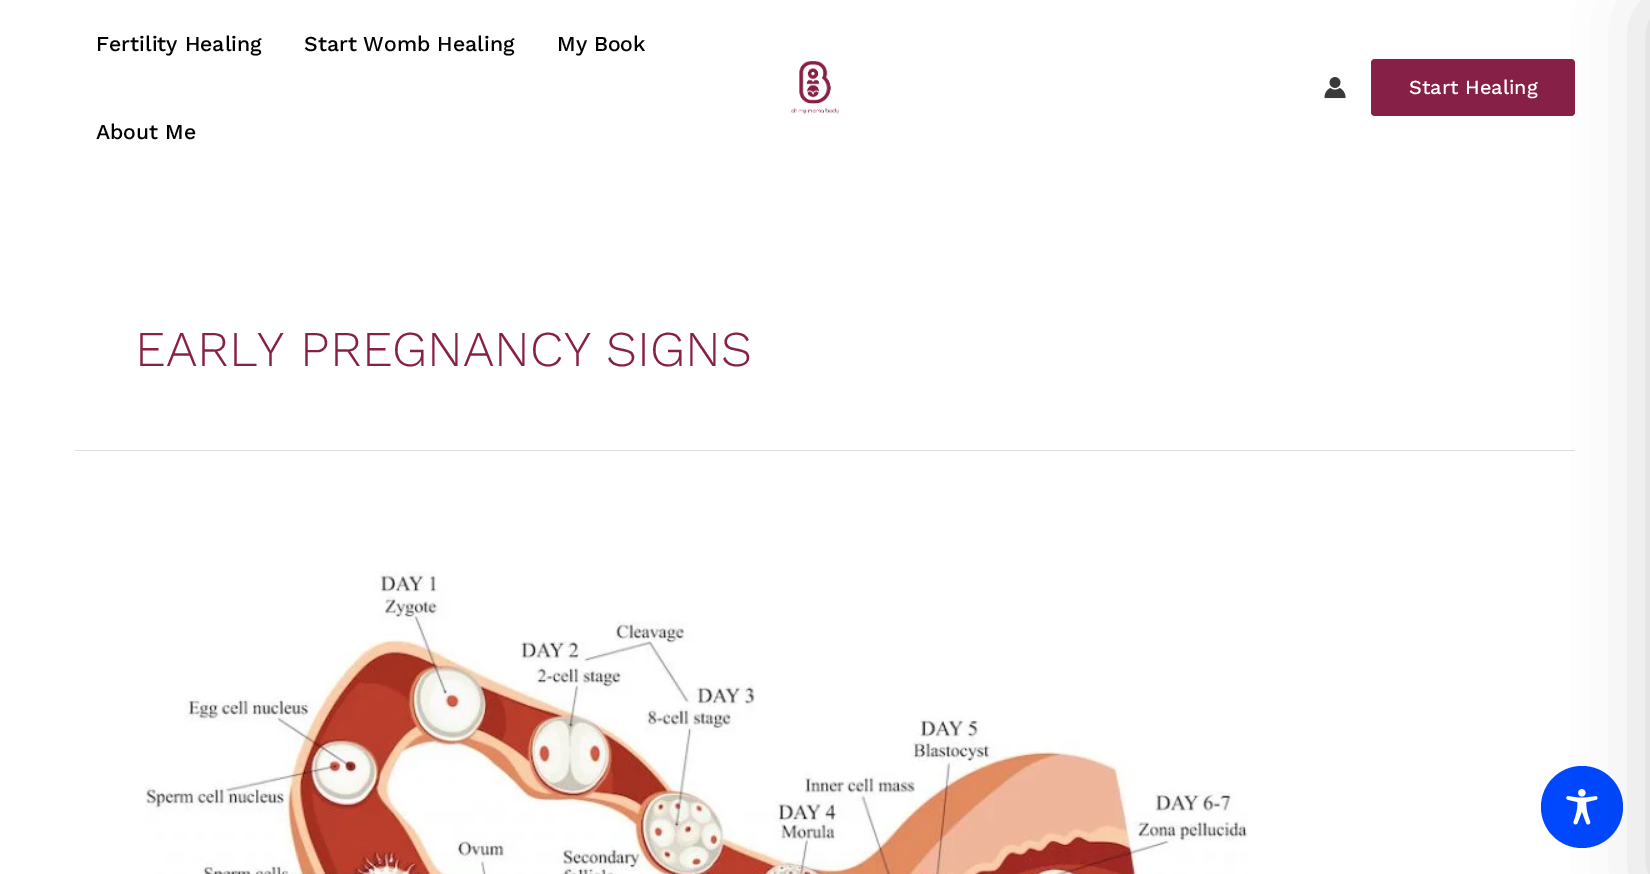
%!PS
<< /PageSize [1650 874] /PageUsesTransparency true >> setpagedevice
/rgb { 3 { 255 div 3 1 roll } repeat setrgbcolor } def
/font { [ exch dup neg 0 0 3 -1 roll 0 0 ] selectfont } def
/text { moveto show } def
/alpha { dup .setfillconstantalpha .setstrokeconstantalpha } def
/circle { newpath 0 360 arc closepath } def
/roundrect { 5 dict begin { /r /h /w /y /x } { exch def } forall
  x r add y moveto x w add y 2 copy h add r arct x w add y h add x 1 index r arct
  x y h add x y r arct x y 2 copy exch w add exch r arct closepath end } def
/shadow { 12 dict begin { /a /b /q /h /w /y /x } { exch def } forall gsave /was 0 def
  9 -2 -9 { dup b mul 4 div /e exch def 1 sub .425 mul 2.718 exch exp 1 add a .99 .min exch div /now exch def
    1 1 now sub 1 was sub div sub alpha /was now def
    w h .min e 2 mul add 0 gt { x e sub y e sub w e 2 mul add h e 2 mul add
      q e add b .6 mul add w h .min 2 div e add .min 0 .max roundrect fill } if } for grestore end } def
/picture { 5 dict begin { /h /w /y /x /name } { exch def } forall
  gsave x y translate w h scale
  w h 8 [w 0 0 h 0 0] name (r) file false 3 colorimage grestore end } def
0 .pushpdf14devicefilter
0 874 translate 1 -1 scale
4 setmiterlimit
255 255 255 rgb
0 0 1650 874 rectfill
(img_01.rgb) 791 61 48 53 picture
(img_02.rgb) 1324 77 22 22 picture
135 32 70 rgb
1371 59 204 57 4 roundrect fill
221 221 221 rgb
75 450 1500 1 rectfill
(img_03.rgb) 145 571 1103 303 picture
0 72 254 rgb
1582 807 41 circle fill
(img_04.rgb) 1566 789 32 36 picture
0 0 0 rgb
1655 13 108 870 0 37.5 0.2 shadow
/WorkSans-Medium 21.25 font
(Fertility Healing) 96 51 text
(Start Womb Healing) 304 51 text
(My Book) 557 51 text
(About Me) 96 139 text
/WorkSans-Medium 20 font
255 255 255 rgb
(Start Healing) 1409 94 text
/WorkSans-Light 50 font
135 32 70 rgb
(EARLY PREGNANCY SIGNS) 135 366 text
.poppdf14devicefilter showpage
